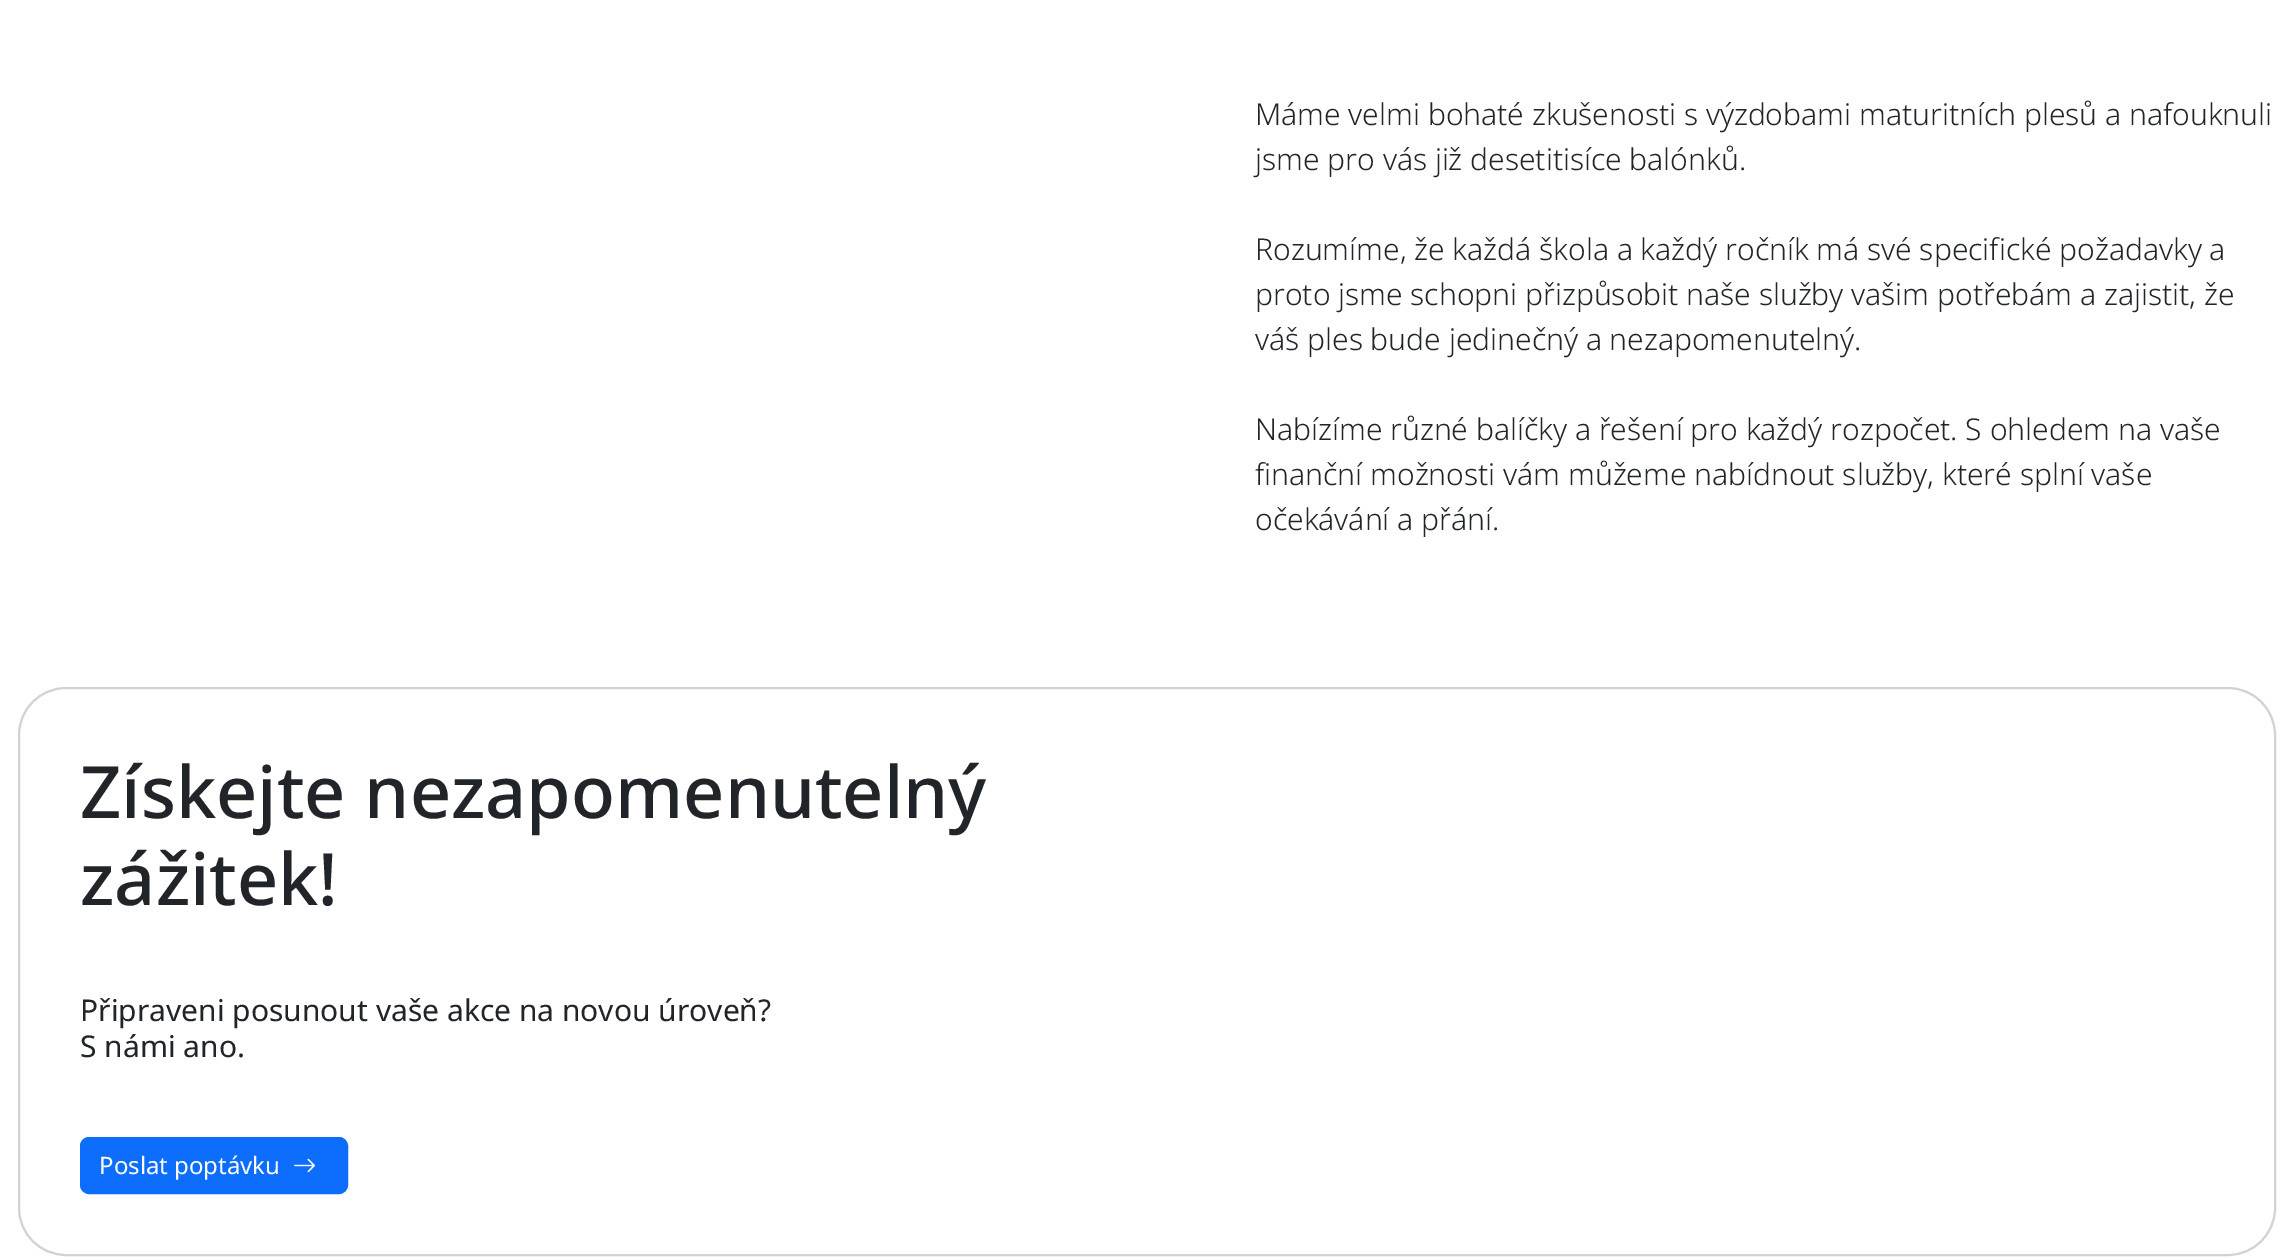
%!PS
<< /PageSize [2293 1258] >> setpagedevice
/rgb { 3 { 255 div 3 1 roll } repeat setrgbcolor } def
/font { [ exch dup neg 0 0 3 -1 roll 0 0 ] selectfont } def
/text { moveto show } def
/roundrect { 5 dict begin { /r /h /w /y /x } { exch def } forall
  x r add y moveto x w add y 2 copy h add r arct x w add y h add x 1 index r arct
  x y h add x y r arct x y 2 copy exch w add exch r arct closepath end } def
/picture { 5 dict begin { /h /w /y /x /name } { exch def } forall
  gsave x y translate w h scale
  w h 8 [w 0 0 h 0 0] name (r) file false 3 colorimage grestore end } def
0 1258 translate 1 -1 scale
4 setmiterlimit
255 255 255 rgb
0 0 2293 1258 rectfill
210 210 210 rgb
2 setlinewidth
19 688 2256 567 47 roundrect stroke
13 110 253 rgb
81 1138 266 55 8 roundrect gsave fill grestore
stroke
(img_01.rgb) 294 1158 21 15 picture
/NotoSans-Light 30 font
33 37 41 rgb
(Máme velmi bohaté zkušenosti s výzdobami maturitních plesů a nafouknuli) 1255 125 text
(jsme pro vás již desetitisíce balónků.) 1255 170 text
(Rozumíme, že každá škola a každý ročník má své specifické požadavky a) 1255 260 text
(proto jsme schopni přizpůsobit naše služby vašim potřebám a zajistit, že) 1255 305 text
(váš ples bude jedinečný a nezapomenutelný.) 1255 350 text
(Nabízíme různé balíčky a řešení pro každý rozpočet. S ohledem na vaše) 1255 440 text
(finanční možnosti vám můžeme nabídnout služby, které splní vaše) 1255 485 text
(očekávání a přání.) 1255 530 text
/NotoSans-Medium 72 font
(Získejte nezapomenutelný) 80 818 text
(zážitek!) 80 905 text
/NotoSans-Regular 30 font
(Připraveni posunout vaše akce na novou úroveň?) 80 1021 text
(S námi ano.) 80 1057 text
/NotoSans-Regular 24 font
255 255 255 rgb
(Poslat poptávku) 99 1174 text
showpage
